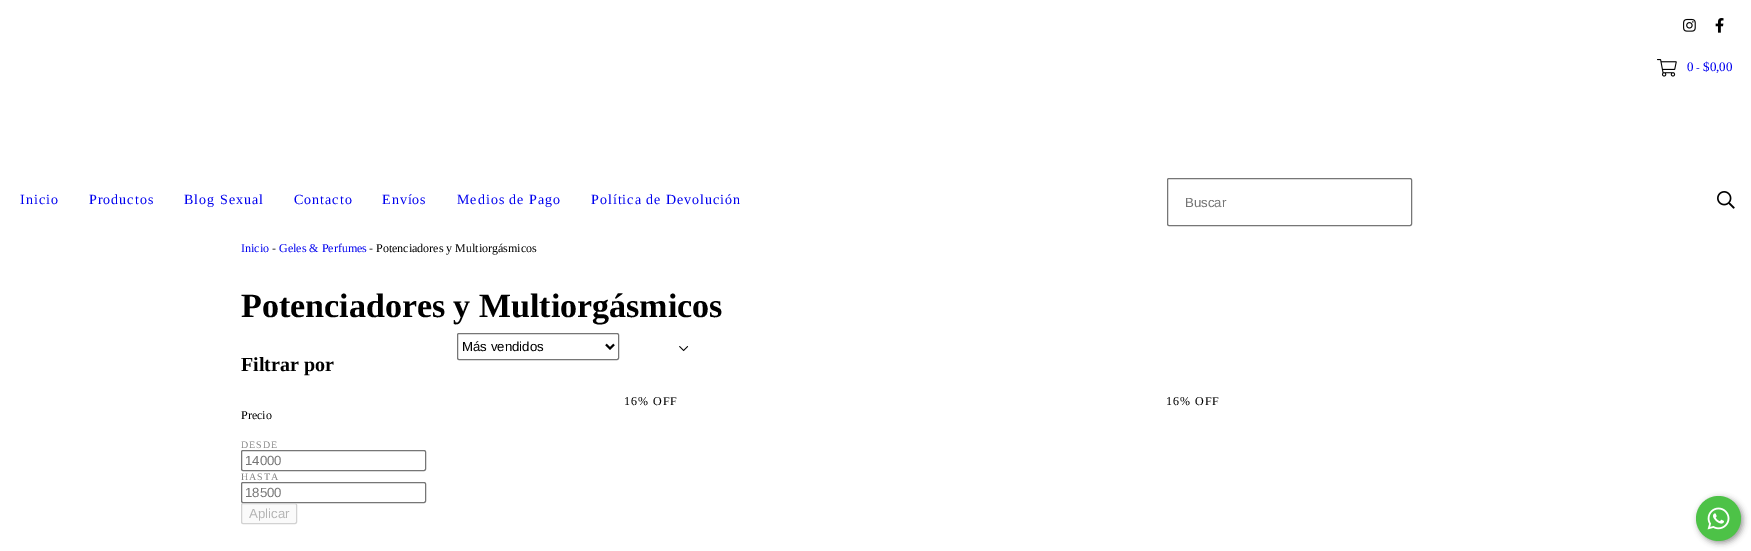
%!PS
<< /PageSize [1751 551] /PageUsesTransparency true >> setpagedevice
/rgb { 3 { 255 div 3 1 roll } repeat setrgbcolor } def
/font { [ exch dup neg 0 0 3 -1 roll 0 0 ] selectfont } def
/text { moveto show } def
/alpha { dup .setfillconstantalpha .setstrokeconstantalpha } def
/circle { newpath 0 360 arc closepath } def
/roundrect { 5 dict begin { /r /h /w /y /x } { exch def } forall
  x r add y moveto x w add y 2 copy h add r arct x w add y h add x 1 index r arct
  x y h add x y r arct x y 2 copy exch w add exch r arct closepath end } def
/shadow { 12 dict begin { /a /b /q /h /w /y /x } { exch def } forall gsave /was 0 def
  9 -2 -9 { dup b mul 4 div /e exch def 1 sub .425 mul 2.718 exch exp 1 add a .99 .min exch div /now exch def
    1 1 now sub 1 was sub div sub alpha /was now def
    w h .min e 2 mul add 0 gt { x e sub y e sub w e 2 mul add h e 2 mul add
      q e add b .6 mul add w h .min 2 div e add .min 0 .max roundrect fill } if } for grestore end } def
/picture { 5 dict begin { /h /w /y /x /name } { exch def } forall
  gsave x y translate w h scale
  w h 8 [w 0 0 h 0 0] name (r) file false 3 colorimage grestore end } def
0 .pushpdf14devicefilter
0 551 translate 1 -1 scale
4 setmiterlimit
255 255 255 rgb
0 0 1751 551 rectfill
(img_01.rgb) 1683 18 13 14 picture
(img_02.rgb) 1715 18 9 15 picture
(img_03.rgb) 1657 59 20 18 picture
118 118 118 rgb
1167.5 178.5 244 47 1.5 roundrect stroke
(img_04.rgb) 1717 191 18 18 picture
241.5 450.5 184 20 1.5 roundrect stroke
241.5 482.5 184 20 1.5 roundrect stroke
250 250 250 rgb
241.5 503.5 55 20 1.5 roundrect gsave fill grestore
210 210 210 rgb
stroke
118 118 118 rgb
457.5 333.5 161 26 1.5 roundrect stroke
0 0 0 rgb
2 setlinewidth
606 344.5 moveto 4 4 rlineto 4 -4 rlineto stroke
(img_05.rgb) 679 346 10 6 picture
1698 498 45 45 22.5 3 0.4 shadow
77 194 71 rgb
1718.5 518.5 22.5 circle fill
(img_06.rgb) 1707 507 23 23 picture
/LiberationSerif-Regular 13 font
0 0 238 rgb
(0) 1687 71 text
/LiberationSerif-Regular 11 font
(-) 1696 71 text
/LiberationSerif-Regular 13 font
($0,00) 1703 71 text
/LiberationSerif-Regular 14 font
20 204 moveto 1 0 (Inicio) ashow
89 204 moveto 1 0 (Productos) ashow
184 204 moveto 1 0 (Blog Sexual) ashow
294 204 moveto 1 0 (Contacto) ashow
382 204 moveto 1 0 (Envíos) ashow
457 204 moveto 1 0 (Medios de Pago) ashow
591 204 moveto 1 0 (Política de Devolución) ashow
/LiberationSans-Regular 13.25 font
117 117 117 rgb
(Buscar) 1185 207 text
/LiberationSerif-Regular 12 font
0 0 238 rgb
(Inicio) 241 252 text
0 0 0 rgb
(-) 272 252 text
0 0 238 rgb
(Geles & Perfumes) 279 252 text
0 0 0 rgb
(- Potenciadores y Multiorgásmicos) 369 252 text
/LiberationSerif-Bold 34 font
(Potenciadores y Multiorgásmicos) 241 317 text
/LiberationSerif-Bold 20 font
(Filtrar por) 241 371 text
/LiberationSerif-Regular 12 font
(Precio) 241 419 text
/LiberationSerif-Regular 10 font
128 128 128 rgb
241 448 moveto 1 0 (DESDE) ashow
/LiberationSans-Regular 13.25 font
117 117 117 rgb
(14000) 245 465 text
/LiberationSerif-Regular 10 font
128 128 128 rgb
241 480 moveto 1 0 (HASTA) ashow
/LiberationSans-Regular 13.25 font
117 117 117 rgb
(18500) 245 497 text
180 180 180 rgb
(Aplicar) 249 518 text
0 0 0 rgb
(Más vendidos) 462 351 text
/LiberationSerif-Regular 12 font
624 405 moveto 1 0 (16% OFF) ashow
1166 405 moveto 1 0 (16% OFF) ashow
.poppdf14devicefilter showpage
